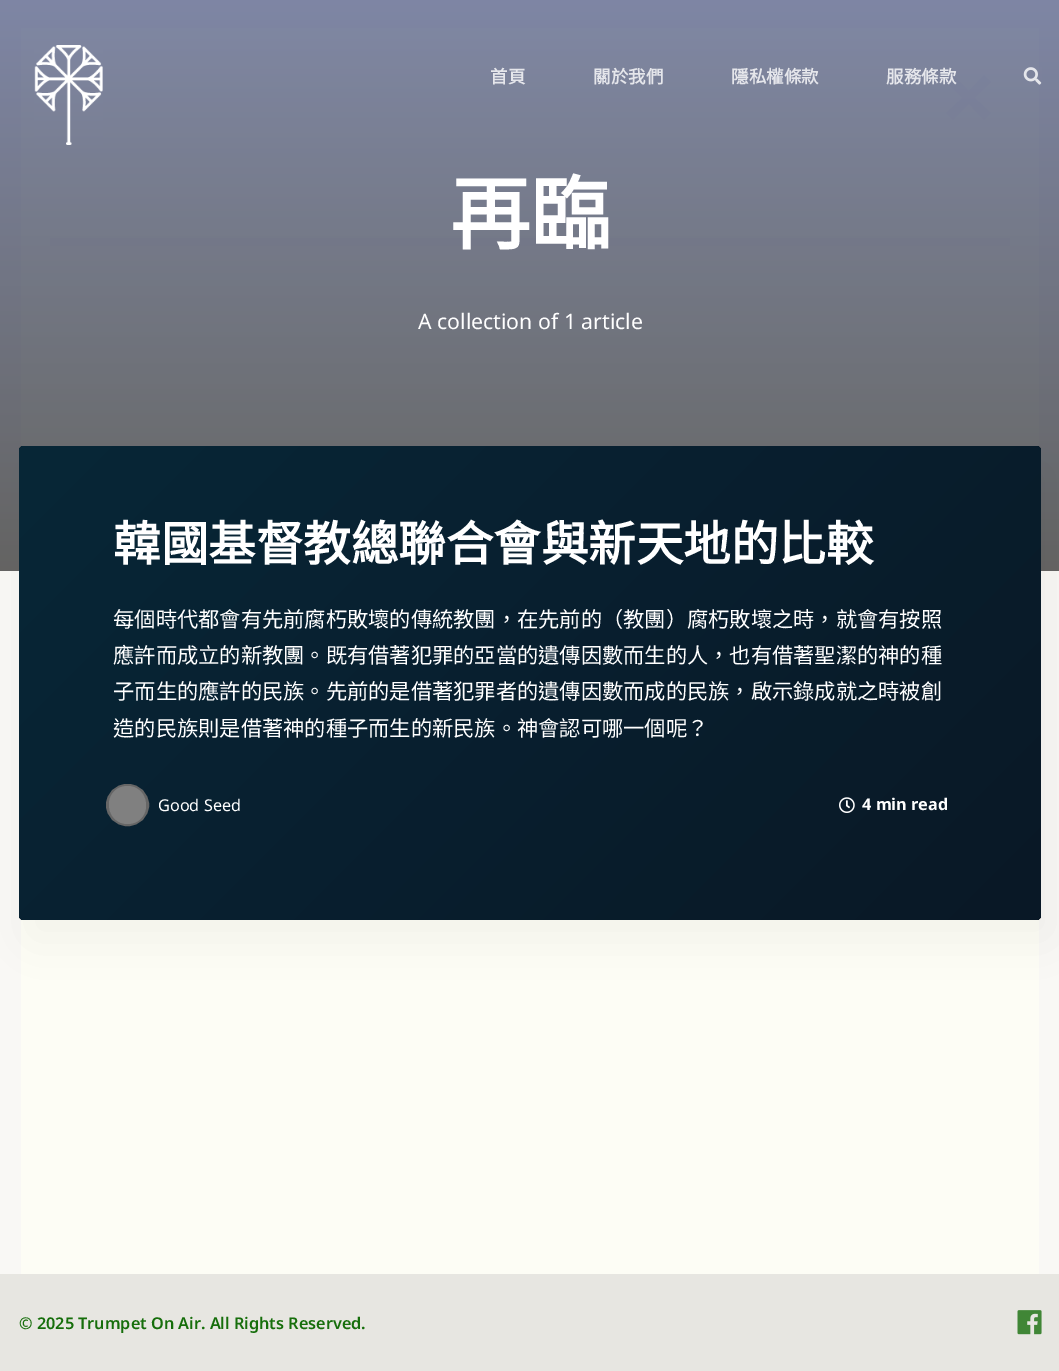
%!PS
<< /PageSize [1059 1371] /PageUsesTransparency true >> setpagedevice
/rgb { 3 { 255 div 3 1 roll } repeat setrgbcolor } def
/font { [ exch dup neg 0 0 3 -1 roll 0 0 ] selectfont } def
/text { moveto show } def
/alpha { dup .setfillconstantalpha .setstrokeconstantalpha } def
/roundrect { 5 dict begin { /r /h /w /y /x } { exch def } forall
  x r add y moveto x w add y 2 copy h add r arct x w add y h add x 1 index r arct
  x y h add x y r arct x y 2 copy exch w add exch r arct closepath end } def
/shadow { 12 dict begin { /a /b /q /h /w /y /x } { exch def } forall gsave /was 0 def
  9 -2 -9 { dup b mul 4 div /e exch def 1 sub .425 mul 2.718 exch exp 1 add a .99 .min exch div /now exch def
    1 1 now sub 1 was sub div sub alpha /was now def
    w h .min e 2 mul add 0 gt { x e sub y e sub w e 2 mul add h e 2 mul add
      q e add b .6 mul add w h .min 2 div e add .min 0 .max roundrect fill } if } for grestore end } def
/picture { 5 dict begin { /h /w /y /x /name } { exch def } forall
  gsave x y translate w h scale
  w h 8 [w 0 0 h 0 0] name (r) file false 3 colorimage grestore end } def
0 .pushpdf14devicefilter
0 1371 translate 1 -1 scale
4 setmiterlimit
249 248 245 rgb
0 0 1059 1371 rectfill
253 253 245 rgb
21 28 1018 1246 rectfill
249 248 245 rgb
975 98 moveto 16 15 rlineto -7 7 rlineto -15 -16 rlineto -16 16 rlineto -7 -7 rlineto 16 -15 rlineto -16 -16 rlineto 7 -7 rlineto 16 16 rlineto 15 -16 rlineto 7 7 rlineto closepath fill
50 238 960 8 rectfill
0.6 alpha
gsave 0 0 moveto 1059 0 rlineto 0 571 rlineto -1059 0 rlineto closepath clip newpath
<< /ShadingType 2 /ColorSpace /DeviceRGB /Coords [530 0 530 571] /Extend [true true] /Function << /FunctionType 2 /Domain [0 1] /C0 [0.176 0.227 0.435] /C1 [0 0 0] /N 1 >> >> shfill grestore
1 alpha
(img_01.rgb) 34 45 69 100 picture
(img_02.rgb) 1023 67 19 18 picture
39 44 49 rgb
29 464 1022 474 4 24 0.06 shadow
34 34 34 rgb
19 446 1022 474 4 roundrect fill
gsave 19 446 1022 474 6 roundrect clip newpath
<< /ShadingType 2 /ColorSpace /DeviceRGB /Coords [156 309 904 1057] /Extend [true true] /Function << /FunctionType 2 /Domain [0 1] /C0 [0.027 0.153 0.216] /C1 [0.039 0.094 0.149] /N 1 >> >> shfill grestore
102 102 102 rgb
3 setlinewidth
107.5 785.5 40 39 19.5 roundrect stroke
gsave
109 786 37 38 rectclip
128 128 128 rgb
127.5 786 moveto -3.5 0 -7.5 1 -10.5 3 rcurveto -15 10.5 -8 35 10.5 35 rcurveto 3.5 0 7.5 -1 10.5 -3 rcurveto 15 -10.5 8 -35 -10.5 -35 rcurveto closepath fill
grestore
(img_03.rgb) 839 797 16 16 picture
231 230 225 rgb
0 1274 1059 97 rectfill
(img_04.rgb) 1017 1310 25 25 picture
/NotoSansCJKTC-Bold 17.5 font
229 230 235 rgb
(首頁) 490 83 text
(關於我們) 593 83 text
(隱私權條款) 731 83 text
(服務條款) 886 83 text
/NotoSansCJKTC-Bold 80 font
255 255 255 rgb
(再臨) 450 243 text
/NotoSans-Regular 21.25 font
(A collection of 1 article) 418 329 text
/NotoSansCJKTC-Bold 47.5 font
(韓國基督教總聯合會與新天地的比較) 113 561 text
/NotoSansCJKTC-Regular 21.25 font
(每個時代都會有先前腐朽敗壞的傳統教團，在先前的（教團）腐朽敗壞之時，就會有按照) 113 627 text
(應許而成立的新教團。既有借著犯罪的亞當的遺傳因數而生的人，也有借著聖潔的神的種) 113 663 text
(子而生的應許的民族。先前的是借著犯罪者的遺傳因數而成的民族，啟示錄成就之時被創) 113 699 text
(造的民族則是借著神的種子而生的新民族。神會認可哪一個呢？) 113 736 text
/NotoSans-Regular 16.25 font
(Good Seed) 158 811 text
/NotoSans-Bold 16.25 font
(4 min read) 862 810 text
/NotoSans-SemiBold 16.25 font
22 110 11 rgb
(© 2025 Trumpet On Air. All Rights Reserved.) 19 1329 text
.poppdf14devicefilter showpage
